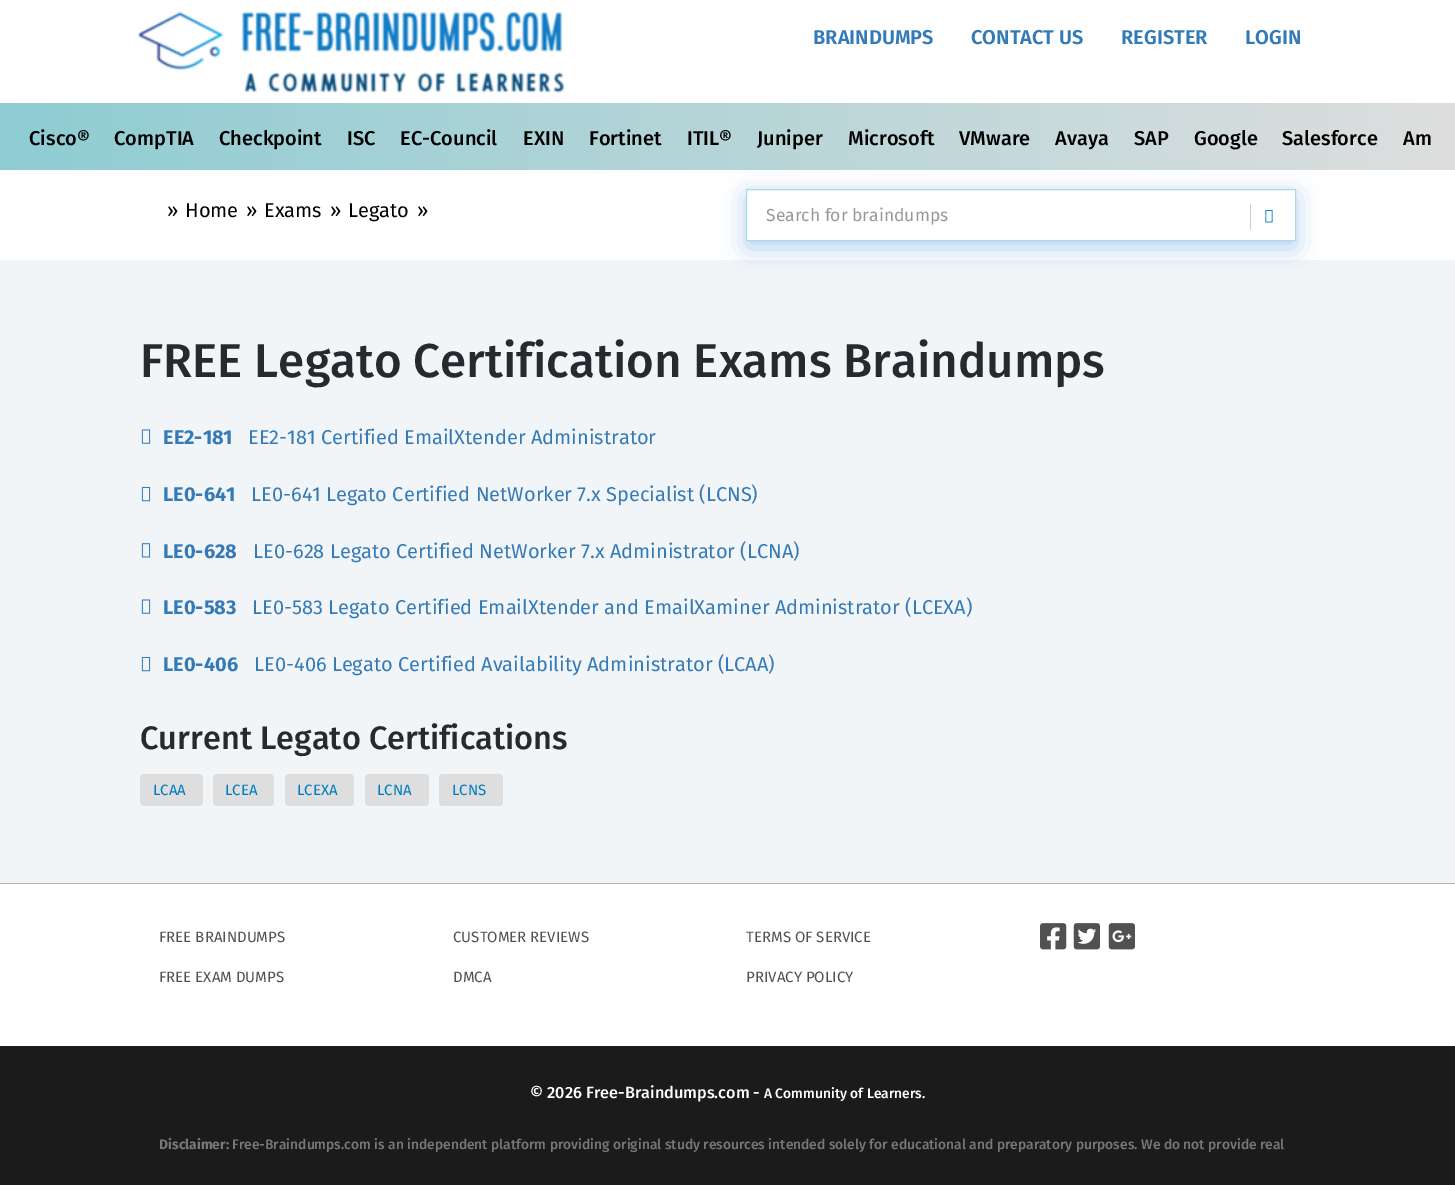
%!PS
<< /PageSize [1455 1185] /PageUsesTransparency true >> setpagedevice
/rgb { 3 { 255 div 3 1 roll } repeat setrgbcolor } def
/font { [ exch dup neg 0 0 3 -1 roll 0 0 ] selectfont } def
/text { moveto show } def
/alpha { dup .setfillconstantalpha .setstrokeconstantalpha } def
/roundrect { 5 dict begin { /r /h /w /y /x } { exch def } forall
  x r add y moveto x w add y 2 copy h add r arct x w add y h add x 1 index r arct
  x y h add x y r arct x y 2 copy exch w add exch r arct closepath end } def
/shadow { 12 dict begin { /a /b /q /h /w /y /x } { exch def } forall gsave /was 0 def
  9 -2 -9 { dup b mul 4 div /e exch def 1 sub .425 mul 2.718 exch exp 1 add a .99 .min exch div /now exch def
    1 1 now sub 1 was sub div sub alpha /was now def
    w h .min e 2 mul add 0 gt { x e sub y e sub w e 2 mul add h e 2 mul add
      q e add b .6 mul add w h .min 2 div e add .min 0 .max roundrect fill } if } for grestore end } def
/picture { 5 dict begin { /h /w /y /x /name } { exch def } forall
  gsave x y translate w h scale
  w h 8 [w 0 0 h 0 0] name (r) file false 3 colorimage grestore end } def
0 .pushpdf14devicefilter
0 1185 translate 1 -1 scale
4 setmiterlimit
242 245 247 rgb
0 0 1455 1185 rectfill
255 255 255 rgb
0 0 1455 103 rectfill
(img_01.rgb) 137 11 428 82 picture
gsave 0 103 moveto 1455 0 rlineto 0 67 rlineto -1455 0 rlineto closepath clip newpath
<< /ShadingType 2 /ColorSpace /DeviceRGB /Coords [0 136 1455 136] /Extend [true true] /Function << /FunctionType 2 /Domain [0 1] /C0 [0.557 0.8 0.827] /C1 [0.871 0.871 0.871] /N 1 >> >> shfill grestore
0 170 1455 90 rectfill
0 102 204 rgb
746 195 550 53 1 12.5 0.3 shadow
255 255 255 rgb
746.5 189.5 549 51 0.5 roundrect gsave fill grestore
171 219 227 rgb
stroke
204 204 204 rgb
1250 204 1 26 rectfill
(img_02.rgb) 1265 210 8 13 picture
(img_03.rgb) 141 429 10 15 picture
(img_04.rgb) 141 486 10 16 picture
(img_05.rgb) 141 543 10 15 picture
(img_03.rgb) 141 599 10 15 picture
(img_04.rgb) 141 656 10 16 picture
222 222 222 rgb
140 774 63 32 4 roundrect fill
213 774 61 32 4 roundrect fill
285 774 69 32 4 roundrect fill
365 774 64 32 4 roundrect fill
439 774 64 32 4 roundrect fill
255 255 255 rgb
0 884 1455 162 rectfill
180 180 180 rgb
0 883 1455 1 rectfill
(img_06.rgb) 1040 923 27 27 picture
(img_07.rgb) 1073 923 27 27 picture
(img_08.rgb) 1108 923 27 27 picture
27 27 27 rgb
0 1046 1455 139 rectfill
/FiraSans-SemiBold 20 font
51 122 183 rgb
(BRAINDUMPS) 813 44 text
(CONTACT US) 971 44 text
(REGISTER) 1121 44 text
(LOGIN) 1245 44 text
/FiraSans-Medium 20 font
0 0 0 rgb
(Cisco®) 29 145 text
(CompTIA) 114 145 text
(Checkpoint) 219 145 text
(ISC) 347 145 text
(EC-Council) 400 145 text
(EXIN) 523 145 text
(Fortinet) 589 145 text
(ITIL®) 687 145 text
(Juniper) 757 145 text
(Microsoft) 848 145 text
(VMware) 959 145 text
(Avaya) 1055 145 text
(SAP) 1134 145 text
(Google) 1194 145 text
(Salesforce) 1282 145 text
(Am) 1403 145 text
/FiraSans-Regular 20 font
(») 167 217 text
(Home) 185 217 text
(») 246 217 text
(Exams) 264 217 text
(») 330 217 text
(Legato) 348 217 text
(») 417 217 text
/FiraSans-Regular 17.5 font
153 153 153 rgb
(Search for braindumps) 766 221 text
/FiraSans-Medium 47.5 font
37 42 47 rgb
(FREE Legato Certification Exams Braindumps) 140 377 text
/FiraSans-Bold 20 font
51 122 183 rgb
(EE2-181) 163 444 text
/FiraSans-Regular 20 font
(EE2-181 Certified EmailXtender Administrator) 248 444 text
/FiraSans-Bold 20 font
(LE0-641) 163 501 text
/FiraSans-Regular 20 font
(LE0-641 Legato Certified NetWorker 7.x Specialist \(LCNS\)) 251 501 text
/FiraSans-Bold 20 font
(LE0-628) 163 558 text
/FiraSans-Regular 20 font
(LE0-628 Legato Certified NetWorker 7.x Administrator \(LCNA\)) 253 558 text
/FiraSans-Bold 20 font
(LE0-583) 163 614 text
/FiraSans-Regular 20 font
(LE0-583 Legato Certified EmailXtender and EmailXaminer Administrator \(LCEXA\)) 252 614 text
/FiraSans-Bold 20 font
(LE0-406) 163 671 text
/FiraSans-Regular 20 font
(LE0-406 Legato Certified Availability Administrator \(LCAA\)) 254 671 text
/FiraSans-Medium 32.5 font
37 42 47 rgb
(Current Legato Certifications) 140 749 text
/FiraSans-Regular 15 font
0 125 193 rgb
(LCAA) 153 795 text
(LCEA) 225 795 text
(LCEXA) 297 795 text
(LCNA) 377 795 text
(LCNS) 452 795 text
81 81 81 rgb
(FREE BRAINDUMPS) 159 942 text
(FREE EXAM DUMPS) 159 982 text
(CUSTOMER REVIEWS) 453 942 text
(DMCA) 453 982 text
(TERMS OF SERVICE) 746 942 text
(PRIVACY POLICY) 746 982 text
/FiraSans-Medium 16.25 font
255 255 255 rgb
(© 2026 Free-Braindumps.com -) 530 1098 text
/FiraSans-Medium 13.8 font
(A Community of Learners.) 764 1098 text
/FiraSans-Bold 13.8 font
119 119 119 rgb
(Disclaimer:) 159 1149 text
/FiraSans-Medium 13.8 font
(Free-Braindumps.com is an independent platform providing original study resources intended solely for educational and preparatory purposes. We do not provide real) 232 1149 text
.poppdf14devicefilter showpage
